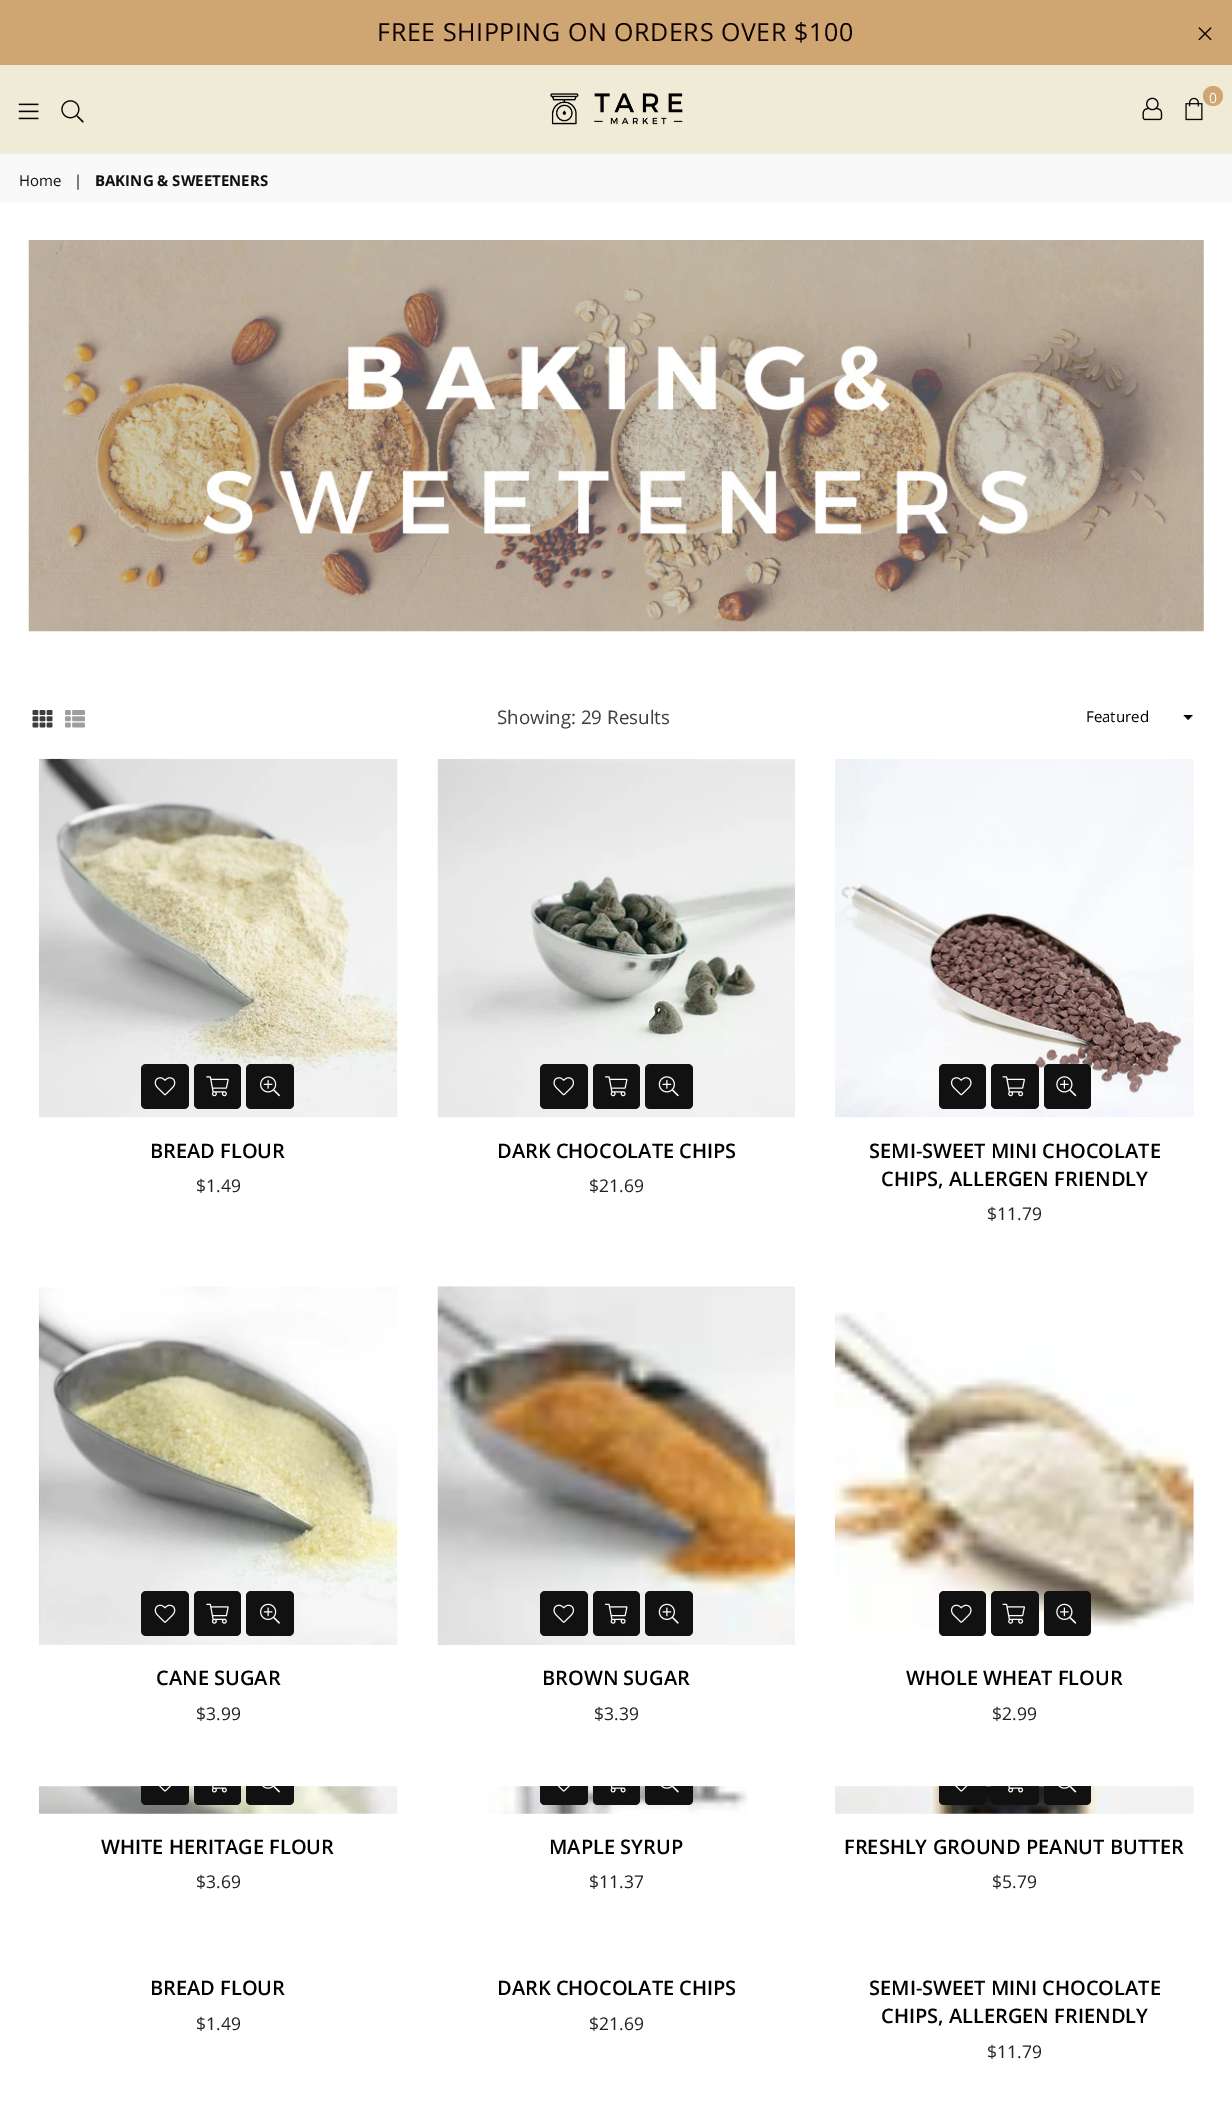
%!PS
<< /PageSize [1232 2117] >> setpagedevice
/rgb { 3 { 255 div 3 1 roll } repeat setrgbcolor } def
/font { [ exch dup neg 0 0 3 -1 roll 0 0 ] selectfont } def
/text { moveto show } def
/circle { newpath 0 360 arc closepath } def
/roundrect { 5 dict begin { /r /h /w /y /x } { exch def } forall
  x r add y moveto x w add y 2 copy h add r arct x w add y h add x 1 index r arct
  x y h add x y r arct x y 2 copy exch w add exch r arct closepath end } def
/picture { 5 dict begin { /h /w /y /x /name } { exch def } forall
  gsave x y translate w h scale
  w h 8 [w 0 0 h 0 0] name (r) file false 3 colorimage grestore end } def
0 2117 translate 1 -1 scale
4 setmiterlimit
255 255 255 rgb
0 0 1232 2117 rectfill
207 166 114 rgb
0 0 1232 65 rectfill
(img_01.rgb) 1198 27 14 14 picture
239 235 214 rgb
0 65 1232 88 rectfill
238 238 238 rgb
0 153 1232 1 rectfill
(img_02.rgb) 550 93 133 32 picture
(img_03.rgb) 1142 97 21 24 picture
(img_04.rgb) 1185 97 18 24 picture
207 166 114 rgb
1213 96 10 circle fill
(img_05.rgb) 18 103 21 17 picture
(img_06.rgb) 61 100 23 23 picture
249 249 249 rgb
0 154 1232 49 rectfill
(img_07.rgb) 28 240 1176 392 picture
(img_08.rgb) 32 710 21 18 picture
(img_09.rgb) 65 710 20 18 picture
(img_10.rgb) 1183 715 10 5 picture
(img_11.rgb) 38 758 360 360 picture
17 17 17 rgb
141 1064 48 45 5 roundrect fill
(img_12.rgb) 154 1077 22 19 picture
194 1064 47 45 5 roundrect fill
(img_13.rgb) 206 1076 23 21 picture
246 1064 48 45 5 roundrect fill
(img_14.rgb) 260 1076 20 21 picture
(img_15.rgb) 437 759 358 359 picture
540 1064 48 45 5 roundrect fill
(img_16.rgb) 553 1077 22 19 picture
593 1064 47 45 5 roundrect fill
(img_17.rgb) 605 1076 23 21 picture
645 1064 48 45 5 roundrect fill
(img_18.rgb) 658 1076 21 21 picture
(img_19.rgb) 835 759 359 359 picture
939 1064 47 45 5 roundrect fill
(img_20.rgb) 950 1077 22 19 picture
991 1064 48 45 5 roundrect fill
(img_21.rgb) 1002 1076 23 21 picture
1044 1064 47 45 5 roundrect fill
(img_22.rgb) 1056 1076 21 21 picture
(img_23.rgb) 38 1286 360 359 picture
141 1591 48 45 5 roundrect fill
(img_24.rgb) 154 1604 22 19 picture
194 1591 47 45 5 roundrect fill
(img_25.rgb) 206 1603 23 21 picture
246 1591 48 45 5 roundrect fill
(img_26.rgb) 260 1603 20 21 picture
(img_27.rgb) 437 1286 358 359 picture
540 1591 48 45 5 roundrect fill
(img_28.rgb) 553 1604 22 19 picture
593 1591 47 45 5 roundrect fill
(img_29.rgb) 605 1603 23 21 picture
645 1591 48 45 5 roundrect fill
(img_30.rgb) 658 1603 21 21 picture
(img_31.rgb) 835 1312 359 318 picture
939 1591 47 45 5 roundrect fill
(img_32.rgb) 950 1604 22 19 picture
991 1591 48 45 5 roundrect fill
(img_33.rgb) 1002 1603 23 21 picture
1044 1591 47 45 5 roundrect fill
(img_34.rgb) 1056 1603 21 21 picture
(img_35.rgb) 38 1786 360 28 picture
141 1786 moveto 48 0 rlineto 0 14 rlineto 0 3 -2 5 -5 5 rcurveto -38 0 rlineto -3 0 -5 -2 -5 -5 rcurveto closepath fill
(img_36.rgb) 158 1786 14 6 picture
194 1786 moveto 47 0 rlineto 0 14 rlineto 0 3 -2 5 -5 5 rcurveto -37 0 rlineto -3 0 -5 -2 -5 -5 rcurveto closepath fill
(img_37.rgb) 211 1786 16 7 picture
246 1786 moveto 48 0 rlineto 0 14 rlineto 0 3 -2 5 -5 5 rcurveto -38 0 rlineto -3 0 -5 -2 -5 -5 rcurveto closepath fill
(img_38.rgb) 262 1786 18 7 picture
(img_39.rgb) 487 1786 261 28 picture
540 1786 moveto 48 0 rlineto 0 14 rlineto 0 3 -2 5 -5 5 rcurveto -38 0 rlineto -3 0 -5 -2 -5 -5 rcurveto closepath fill
(img_40.rgb) 557 1786 13 6 picture
593 1786 moveto 47 0 rlineto 0 14 rlineto 0 3 -2 5 -5 5 rcurveto -37 0 rlineto -3 0 -5 -2 -5 -5 rcurveto closepath fill
(img_41.rgb) 610 1786 16 7 picture
645 1786 moveto 48 0 rlineto 0 14 rlineto 0 3 -2 5 -5 5 rcurveto -38 0 rlineto -3 0 -5 -2 -5 -5 rcurveto closepath fill
(img_42.rgb) 661 1786 18 7 picture
(img_43.rgb) 835 1786 359 28 picture
939 1786 moveto 47 0 rlineto 0 14 rlineto 0 3 -2 5 -5 5 rcurveto -37 0 rlineto -3 0 -5 -2 -5 -5 rcurveto closepath fill
(img_44.rgb) 955 1786 13 6 picture
991 1786 moveto 48 0 rlineto 0 14 rlineto 0 3 -2 5 -5 5 rcurveto -38 0 rlineto -3 0 -5 -2 -5 -5 rcurveto closepath fill
(img_45.rgb) 1008 1786 16 7 picture
1044 1786 moveto 47 0 rlineto 0 14 rlineto 0 3 -2 5 -5 5 rcurveto -37 0 rlineto -3 0 -5 -2 -5 -5 rcurveto closepath fill
(img_46.rgb) 1058 1786 19 7 picture
/OpenSans-Regular 25 font
13 1 1 rgb
377 41 moveto 0.6 0 (FREE SHIPPING ON ORDERS OVER $100) ashow
/OpenSans-Regular 14 font
255 255 255 rgb
(0) 1209 103 text
/OpenSans-Regular 15 font
17 17 17 rgb
(Home) 19 186 text
(|) 74 186 text
/OpenSans-Bold 15 font
(BAKING & SWEETENERS) 95 186 text
/OpenSans-Regular 18.75 font
62 62 62 rgb
(Showing: 29 Results) 497 724 text
/OpenSans-Regular 15 font
0 0 0 rgb
(Featured) 1086 722 text
/OpenSans-SemiBold 20 font
(BREAD FLOUR) 150 1158 text
/OpenSans-Regular 17.5 font
34 34 34 rgb
($1.49) 196 1192 text
/OpenSans-SemiBold 20 font
0 0 0 rgb
(DARK CHOCOLATE CHIPS) 497 1158 text
/OpenSans-Regular 17.5 font
34 34 34 rgb
($21.69) 589 1192 text
/OpenSans-SemiBold 20 font
0 0 0 rgb
(SEMI-SWEET MINI CHOCOLATE) 869 1158 text
(CHIPS, ALLERGEN FRIENDLY) 881 1186 text
/OpenSans-Regular 17.5 font
34 34 34 rgb
($11.79) 987 1220 text
/OpenSans-SemiBold 20 font
0 0 0 rgb
(CANE SUGAR) 156 1685 text
/OpenSans-Regular 17.5 font
34 34 34 rgb
($3.99) 196 1720 text
/OpenSans-SemiBold 20 font
0 0 0 rgb
(BROWN SUGAR) 542 1685 text
/OpenSans-Regular 17.5 font
34 34 34 rgb
($3.39) 594 1720 text
/OpenSans-SemiBold 20 font
0 0 0 rgb
(WHOLE WHEAT FLOUR) 906 1685 text
/OpenSans-Regular 17.5 font
34 34 34 rgb
($2.99) 992 1720 text
/OpenSans-SemiBold 20 font
0 0 0 rgb
(WHITE HERITAGE FLOUR) 101 1854 text
/OpenSans-Regular 17.5 font
34 34 34 rgb
($3.69) 196 1888 text
/OpenSans-SemiBold 20 font
0 0 0 rgb
(MAPLE SYRUP) 549 1854 text
/OpenSans-Regular 17.5 font
34 34 34 rgb
($11.37) 589 1888 text
/OpenSans-SemiBold 20 font
0 0 0 rgb
(FRESHLY GROUND PEANUT BUTTER) 844 1854 text
/OpenSans-Regular 17.5 font
34 34 34 rgb
($5.79) 992 1888 text
/OpenSans-SemiBold 20 font
0 0 0 rgb
(BREAD FLOUR) 150 1995 text
/OpenSans-Regular 17.5 font
34 34 34 rgb
($1.49) 196 2030 text
/OpenSans-SemiBold 20 font
0 0 0 rgb
(DARK CHOCOLATE CHIPS) 497 1995 text
/OpenSans-Regular 17.5 font
34 34 34 rgb
($21.69) 589 2030 text
/OpenSans-SemiBold 20 font
0 0 0 rgb
(SEMI-SWEET MINI CHOCOLATE) 869 1995 text
(CHIPS, ALLERGEN FRIENDLY) 881 2023 text
/OpenSans-Regular 17.5 font
34 34 34 rgb
($11.79) 987 2058 text
showpage
